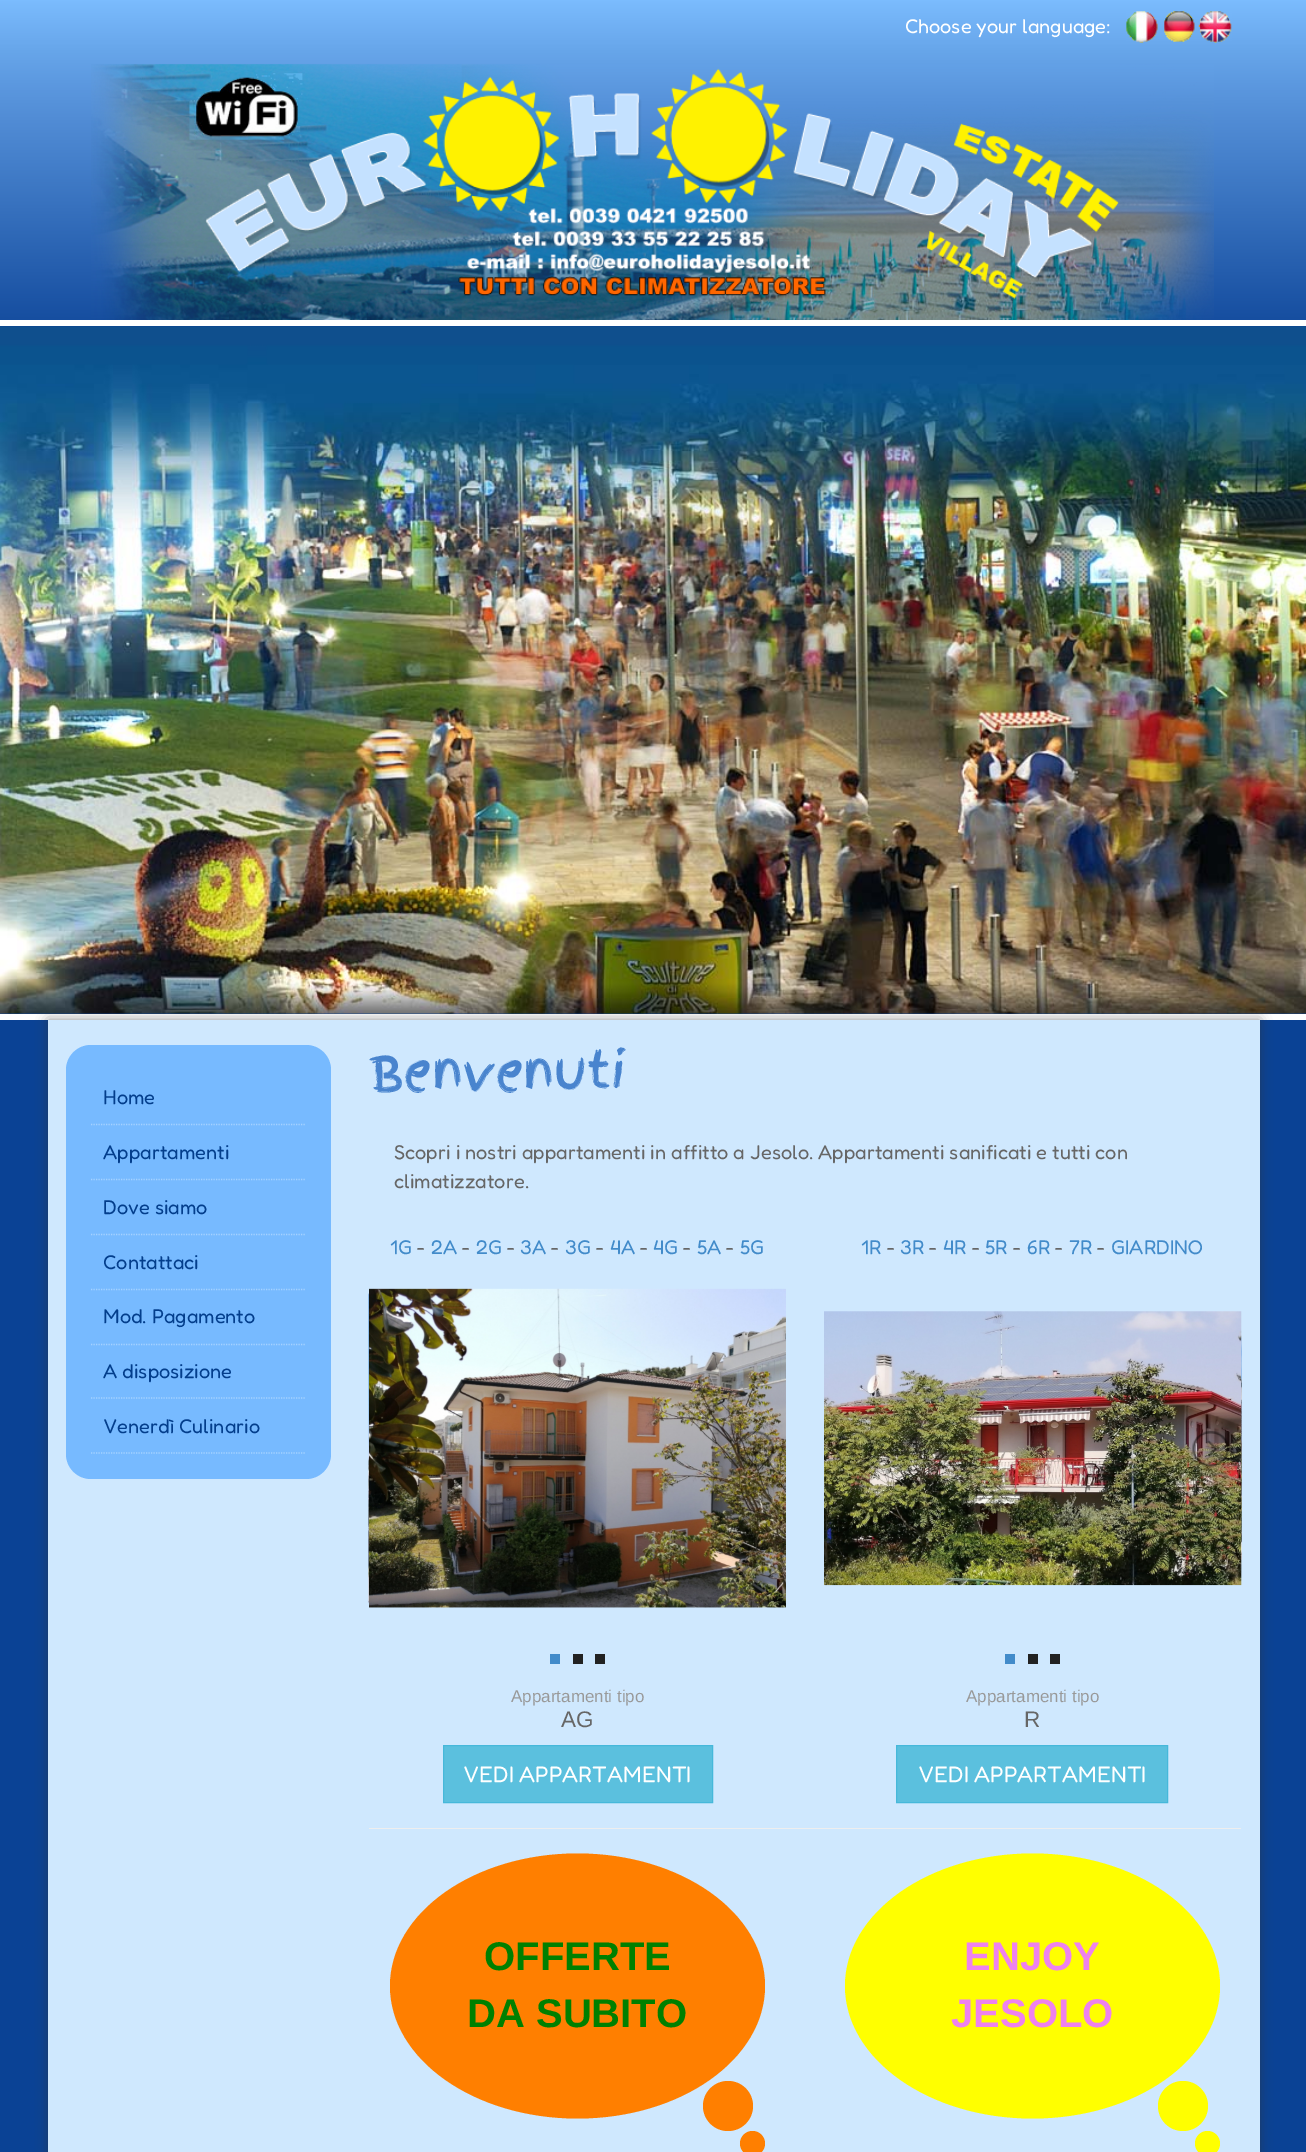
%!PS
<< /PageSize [1306 2152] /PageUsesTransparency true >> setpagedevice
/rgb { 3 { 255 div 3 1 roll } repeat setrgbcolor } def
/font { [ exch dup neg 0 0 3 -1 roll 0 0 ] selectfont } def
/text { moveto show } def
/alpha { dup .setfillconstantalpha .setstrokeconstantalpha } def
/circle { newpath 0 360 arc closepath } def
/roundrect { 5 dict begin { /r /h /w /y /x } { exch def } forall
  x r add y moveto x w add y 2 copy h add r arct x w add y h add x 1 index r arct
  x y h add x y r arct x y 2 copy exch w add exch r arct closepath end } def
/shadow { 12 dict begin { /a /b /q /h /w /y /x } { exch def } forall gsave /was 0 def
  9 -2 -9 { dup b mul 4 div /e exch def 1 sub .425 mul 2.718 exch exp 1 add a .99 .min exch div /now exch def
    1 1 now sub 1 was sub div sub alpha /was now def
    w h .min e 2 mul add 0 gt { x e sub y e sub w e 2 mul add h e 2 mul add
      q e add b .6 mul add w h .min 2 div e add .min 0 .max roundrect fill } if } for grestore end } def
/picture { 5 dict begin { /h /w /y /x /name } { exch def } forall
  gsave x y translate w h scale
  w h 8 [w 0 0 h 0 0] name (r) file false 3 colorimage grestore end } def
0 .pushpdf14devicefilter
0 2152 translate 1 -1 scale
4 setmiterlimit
10 66 149 rgb
0 0 1306 2152 rectfill
gsave 0 0 moveto 1306 0 rlineto 0 320 rlineto -1306 0 rlineto closepath clip newpath
<< /ShadingType 2 /ColorSpace /DeviceRGB /Coords [653 320 653 0] /Extend [true true] /Function << /FunctionType 3 /Domain [0 1] /Functions [<< /FunctionType 2 /Domain [0 1] /C0 [0.086 0.306 0.627] /C1 [0.341 0.576 0.859] /N 1 >> << /FunctionType 2 /Domain [0 1] /C0 [0.341 0.576 0.859] /C1 [0.412 0.659 0.925] /N 1 >> << /FunctionType 2 /Domain [0 1] /C0 [0.412 0.659 0.925] /C1 [0.482 0.737 0.996] /N 1 >>] /Bounds [0.69 0.86] /Encode [0 1 0 1 0 1] >> >> shfill grestore
255 255 255 rgb
0 320 1306 6 rectfill
(img_01.rgb) 1126 11 106 32 picture
(img_02.rgb) 91 64 1123 256 picture
0 1014 1306 6 rectfill
(img_03.rgb) 0 326 1306 688 picture
50 50 50 rgb
48 1020 1212 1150 0 6 0.55 shadow
207 232 254 rgb
48 1020 1212 1132 rectfill
119 186 255 rgb
66 1045 265 434 25 roundrect fill
166 210 255 rgb
1.2 setlinewidth
[1.25 1.25] 0 setdash
91 1124.5 moveto 215 0 rlineto stroke
91 1179.5 moveto 215 0 rlineto stroke
91 1234.5 moveto 215 0 rlineto stroke
91 1289.5 moveto 215 0 rlineto stroke
91 1344.5 moveto 215 0 rlineto stroke
91 1398 moveto 215 0 rlineto stroke
91 1453 moveto 215 0 rlineto stroke
(img_04.rgb) 368 1293 1 311 picture
(img_05.rgb) 369 1288 417 320 picture
(img_06.rgb) 381 1431 38 36 picture
(img_07.rgb) 737 1430 38 37 picture
66 139 202 rgb
550 1654 10 10 rectfill
34 34 34 rgb
573 1654 10 10 rectfill
595 1654 10 10 rectfill
91 192 222 rgb
443.5 1745.5 moveto 269 0 rlineto 0 57 rlineto -269 0 rlineto closepath gsave fill grestore
70 184 218 rgb
1 setlinewidth
[] 0 setdash
stroke
(img_08.rgb) 824 1311 418 275 picture
(img_09.rgb) 1241 1337 1 223 picture
(img_10.rgb) 836 1430 38 37 picture
(img_11.rgb) 1192 1431 37 36 picture
66 139 202 rgb
1005 1654 10 10 rectfill
34 34 34 rgb
1028 1654 10 10 rectfill
1050 1654 10 10 rectfill
91 192 222 rgb
896.5 1745.5 moveto 271 0 rlineto 0 57 rlineto -271 0 rlineto closepath gsave fill grestore
70 184 218 rgb
stroke
238 238 238 rgb
369 1828 872 1 rectfill
255 127 0 rgb
577.5 1853.5 moveto 103.5 0 187.5 59.5 187.5 132.5 rcurveto 0 73 -84 132.5 -187.5 132.5 rcurveto -103.5 0 -187.5 -59.5 -187.5 -132.5 rcurveto 0 -73 84 -132.5 187.5 -132.5 rcurveto closepath fill
728 2106 25 circle fill
752.5 2143.5 12.5 circle fill
255 255 0 rgb
1032.5 1853.5 moveto 103.5 0 187.5 59.5 187.5 132.5 rcurveto 0 73 -84 132.5 -187.5 132.5 rcurveto -103.5 0 -187.5 -59.5 -187.5 -132.5 rcurveto 0 -73 84 -132.5 187.5 -132.5 rcurveto closepath fill
1183 2106 25 circle fill
1207.5 2143.5 12.5 circle fill
/Fredoka-Light 20 font
255 255 255 rgb
(Choose your language:) 905 33 text
3 62 140 rgb
(Home) 103 1104 text
(Appartamenti) 103 1159 text
(Dove siamo) 103 1214 text
(Contattaci) 103 1269 text
(Mod. Pagamento) 103 1323 text
(A disposizione) 103 1378 text
(Venerdì Culinario) 103 1433 text
/FingerPaint-Regular 50 font
73 132 206 rgb
(Benvenuti) 369 1090 text
/Fredoka-Light 20 font
102 102 102 rgb
(Scopri i nostri appartamenti in affitto a Jesolo. Appartamenti sanificati e tutti con) 394 1159 text
(climatizzatore.) 394 1188 text
66 139 202 rgb
(1G) 390 1254 text
102 102 102 rgb
(-) 417 1254 text
66 139 202 rgb
(2A) 431 1254 text
102 102 102 rgb
(-) 462 1254 text
66 139 202 rgb
(2G) 476 1254 text
102 102 102 rgb
(-) 507 1254 text
66 139 202 rgb
(3A) 520 1254 text
102 102 102 rgb
(-) 551 1254 text
66 139 202 rgb
(3G) 565 1254 text
102 102 102 rgb
(-) 596 1254 text
66 139 202 rgb
(4A) 610 1254 text
102 102 102 rgb
(-) 640 1254 text
66 139 202 rgb
(4G) 653 1254 text
102 102 102 rgb
(-) 683 1254 text
66 139 202 rgb
(5A) 697 1254 text
102 102 102 rgb
(-) 726 1254 text
66 139 202 rgb
(5G) 740 1254 text
/LiberationSans-Regular 17 font
153 153 153 rgb
(Appartamenti tipo) 511 1702 text
/LiberationSans-Regular 22.5 font
102 102 102 rgb
(AG) 561 1727 text
/Fredoka-Light 22.5 font
255 255 255 rgb
(VEDI APPARTAMENTI) 463 1782 text
/Fredoka-Light 20 font
66 139 202 rgb
(1R) 861 1254 text
102 102 102 rgb
(-) 887 1254 text
66 139 202 rgb
(3R) 900 1254 text
102 102 102 rgb
(-) 929 1254 text
66 139 202 rgb
(4R) 943 1254 text
102 102 102 rgb
(-) 972 1254 text
66 139 202 rgb
(5R) 985 1254 text
102 102 102 rgb
(-) 1013 1254 text
66 139 202 rgb
(6R) 1027 1254 text
102 102 102 rgb
(-) 1055 1254 text
66 139 202 rgb
(7R) 1069 1254 text
102 102 102 rgb
(-) 1097 1254 text
66 139 202 rgb
(GIARDINO) 1111 1254 text
/LiberationSans-Regular 17 font
153 153 153 rgb
(Appartamenti tipo) 966 1702 text
/LiberationSans-Regular 22.5 font
102 102 102 rgb
(R) 1024 1727 text
/Fredoka-Light 22.5 font
255 255 255 rgb
(VEDI APPARTAMENTI) 918 1782 text
/LiberationSans-Bold 40 font
0 128 0 rgb
(OFFERTE) 484 1970 text
(DA SUBITO) 467 2027 text
238 130 238 rgb
(ENJOY) 964 1970 text
(JESOLO) 951 2027 text
.poppdf14devicefilter showpage
